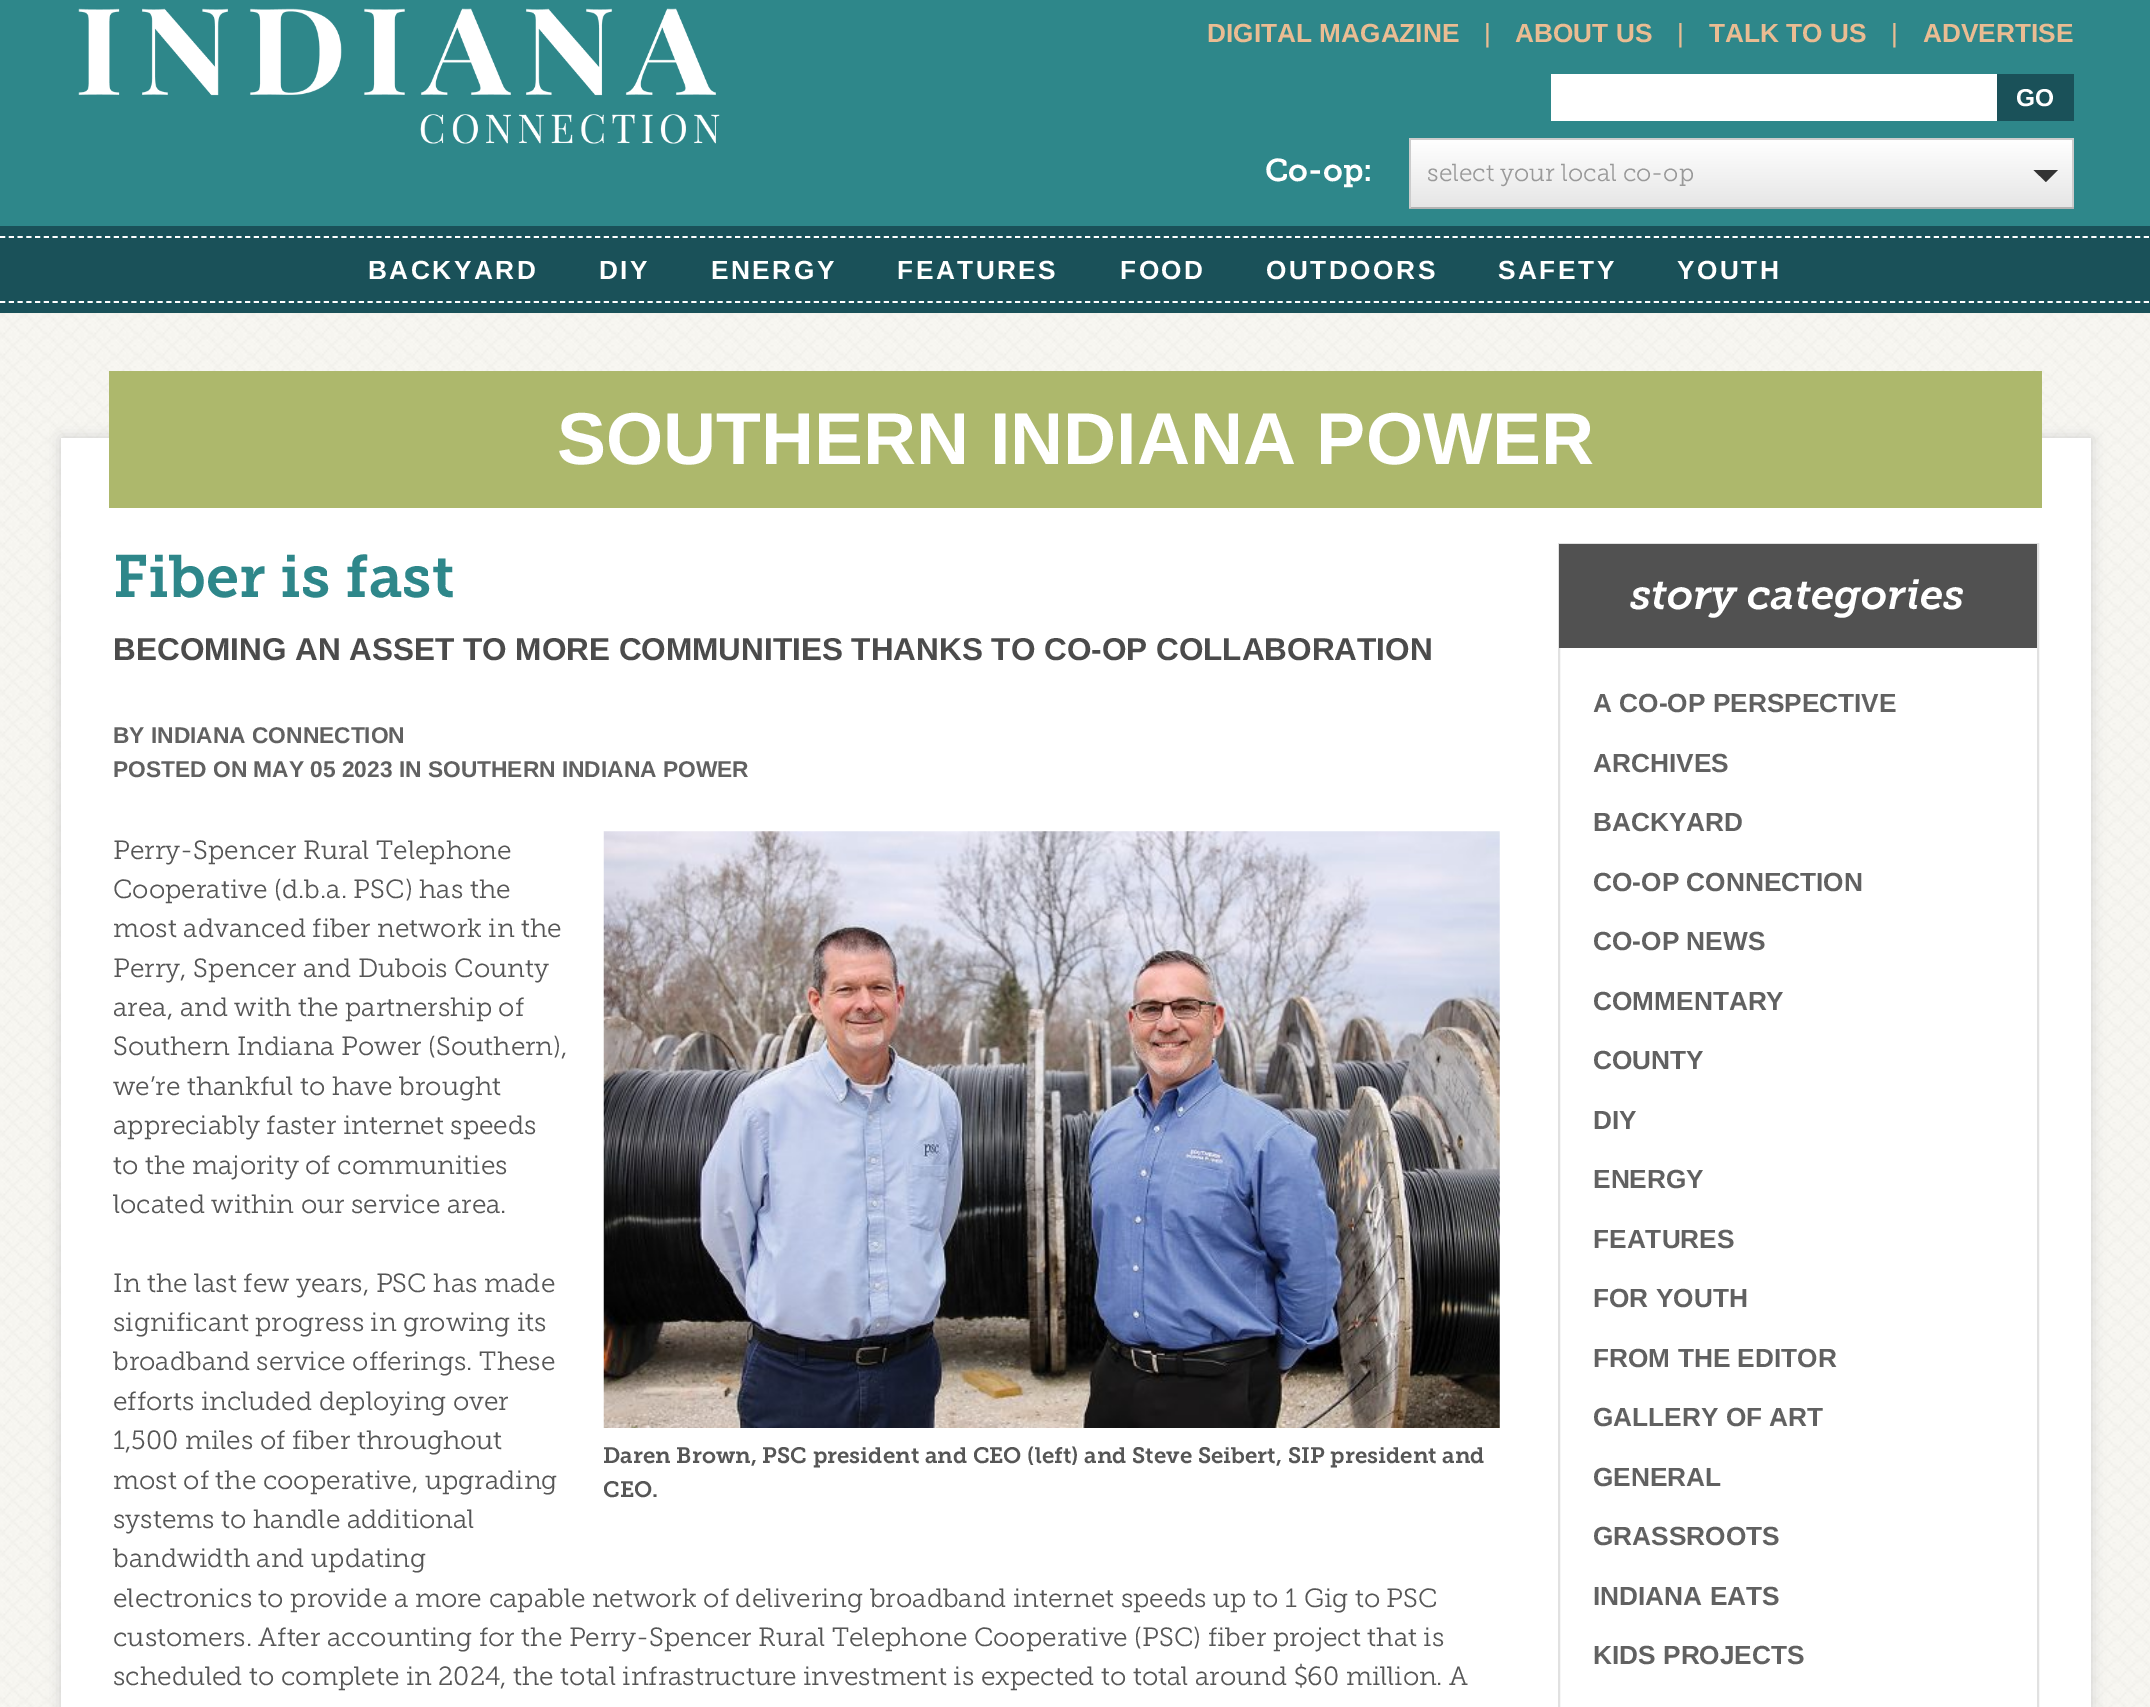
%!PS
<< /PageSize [2150 1707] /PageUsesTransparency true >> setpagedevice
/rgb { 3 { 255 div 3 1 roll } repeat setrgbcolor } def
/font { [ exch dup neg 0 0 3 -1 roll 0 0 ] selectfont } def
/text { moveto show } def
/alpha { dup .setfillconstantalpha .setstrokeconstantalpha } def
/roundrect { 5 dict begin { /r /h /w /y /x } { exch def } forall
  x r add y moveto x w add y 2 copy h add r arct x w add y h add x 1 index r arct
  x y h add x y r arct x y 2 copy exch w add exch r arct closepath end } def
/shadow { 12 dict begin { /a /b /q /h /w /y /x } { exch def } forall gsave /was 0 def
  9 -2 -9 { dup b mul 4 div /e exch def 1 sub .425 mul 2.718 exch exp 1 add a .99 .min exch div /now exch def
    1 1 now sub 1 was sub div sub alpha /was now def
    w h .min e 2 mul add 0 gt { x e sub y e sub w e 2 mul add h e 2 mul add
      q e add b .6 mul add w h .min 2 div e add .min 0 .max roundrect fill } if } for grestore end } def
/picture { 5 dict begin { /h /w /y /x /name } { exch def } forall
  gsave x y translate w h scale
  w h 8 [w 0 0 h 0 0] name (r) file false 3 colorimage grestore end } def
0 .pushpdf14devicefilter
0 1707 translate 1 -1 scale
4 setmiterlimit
255 255 255 rgb
0 0 2150 1707 rectfill
46 135 138 rgb
0 0 2150 226 rectfill
(img_01.rgb) 78 8 642 136 picture
255 255 255 rgb
1551 74 446 47 rectfill
26 81 89 rgb
1997 74 77 47 rectfill
gsave 1411 140 moveto 661 0 rlineto 0 67 rlineto -661 0 rlineto closepath clip newpath
<< /ShadingType 2 /ColorSpace /DeviceRGB /Coords [1741 140 1741 207] /Extend [true true] /Function << /FunctionType 2 /Domain [0 1] /C0 [1 1 1] /C1 [0.902 0.902 0.902] /N 1 >> >> shfill grestore
204 204 204 rgb
1409 138 665 2 rectfill
2072 138 2 70 rectfill
179 179 179 rgb
1409 207 665 2 rectfill
204 204 204 rgb
1409 138 2 70 rectfill
51 51 51 rgb
2033.5 170 moveto 24.5 0 rlineto -12 12 rlineto closepath fill
26 81 89 rgb
0 226 2150 87 rectfill
255 255 255 rgb
1.8 setlinewidth
[5.25 3.5] 0 setdash
0 237 moveto 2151 0 rlineto stroke
0 302 moveto 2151 0 rlineto stroke
(img_02.rgb) 0 313 2150 1394 picture
204 204 204 rgb
61 438 2030 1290 0 7 1 shadow
255 255 255 rgb
61 438 2030 1269 rectfill
173 184 108 rgb
109 371 1933 137 rectfill
(img_03.rgb) 603 831 897 597 picture
225 225 225 rgb
2 setlinewidth
[] 0 setdash
1559 544 479 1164 rectstroke
81 81 81 rgb
1559 544 478 104 rectfill
/LiberationSans-Bold 26.25 font
234 188 146 rgb
(DIGITAL MAGAZINE) 1207 42 text
/LiberationSans-Regular 26.25 font
(|) 1484 42 text
/LiberationSans-Bold 26.25 font
(ABOUT US) 1515 42 text
/LiberationSans-Regular 26.25 font
(|) 1677 42 text
/LiberationSans-Bold 26.25 font
(TALK TO US) 1709 42 text
/LiberationSans-Regular 26.25 font
(|) 1891 42 text
/LiberationSans-Bold 26.25 font
(ADVERTISE) 1923 42 text
/LiberationSans-Bold 24.5 font
255 255 255 rgb
(GO) 2016 106 text
/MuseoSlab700-SemiBold 31.5 font
(Co-op:) 1265 181 text
/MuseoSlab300-Light 24.5 font
153 153 153 rgb
(select your local co-op) 1427 181 text
/LiberationSans-Bold 26.25 font
255 255 255 rgb
368 279 moveto 2.5 0 (BACKYARD) ashow
599 279 moveto 2.5 0 (DIY) ashow
711 279 moveto 2.5 0 (ENERGY) ashow
897 279 moveto 2.5 0 (FEATURES) ashow
1120 279 moveto 2.5 0 (FOOD) ashow
1266 279 moveto 2.5 0 (OUTDOORS) ashow
1498 279 moveto 2.5 0 (SAFETY) ashow
1677 279 moveto 2.5 0 (YOUTH) ashow
/LiberationSans-Bold 73.5 font
(SOUTHERN INDIANA POWER) 557 464 text
/MuseoSlab700-SemiBold 59.5 font
46 135 138 rgb
(Fiber is fast) 113 597 text
/LiberationSans-Bold 31.5 font
75 75 75 rgb
(BECOMING AN ASSET TO MORE COMMUNITIES THANKS TO CO-OP COLLABORATION) 113 660 text
/LiberationSans-Bold 22.75 font
97 97 97 rgb
(BY INDIANA CONNECTION) 113 743 text
(POSTED ON MAY 05 2023 IN SOUTHERN INDIANA POWER) 113 777 text
/MuseoSlab300-Light 26.25 font
86 86 86 rgb
(Perry-Spencer Rural Telephone) 113 859 text
(Cooperative \(d.b.a. PSC\) has the) 113 898 text
(most advanced fiber network in the) 113 937 text
(Perry, Spencer and Dubois County) 113 977 text
(area, and with the partnership of) 113 1016 text
(Southern Indiana Power \(Southern\),) 113 1055 text
(we’re thankful to have brought) 113 1095 text
(appreciably faster internet speeds) 113 1134 text
(to the majority of communities) 113 1174 text
(located within our service area.) 113 1213 text
(In the last few years, PSC has made) 113 1292 text
(significant progress in growing its) 113 1331 text
(broadband service offerings. These) 113 1370 text
(efforts included deploying over) 113 1410 text
(1,500 miles of fiber throughout) 113 1449 text
(most of the cooperative, upgrading) 113 1489 text
(systems to handle additional) 113 1528 text
(bandwidth and updating) 113 1567 text
(electronics to provide a more capable network of delivering broadband internet speeds up to 1 Gig to PSC) 113 1607 text
(customers. After accounting for the Perry-Spencer Rural Telephone Cooperative \(PSC\) fiber project that is) 113 1646 text
(scheduled to complete in 2024, the total infrastructure investment is expected to total around $60 million. A) 113 1685 text
/MuseoSlab700-SemiBold 22.3 font
(Daren Brown, PSC president and CEO \(left\) and Steve Seibert, SIP president and) 603 1463 text
(CEO.) 603 1497 text
/MuseoSlab700-SemiBoldItalic 42 font
255 255 255 rgb
(story categories) 1630 609 text
/LiberationSans-Bold 26.25 font
97 97 97 rgb
(A CO-OP PERSPECTIVE) 1593 712 text
(ARCHIVES) 1593 772 text
(BACKYARD) 1593 831 text
(CO-OP CONNECTION) 1593 891 text
(CO-OP NEWS) 1593 950 text
(COMMENTARY) 1593 1010 text
(COUNTY) 1593 1069 text
(DIY) 1593 1129 text
(ENERGY) 1593 1188 text
(FEATURES) 1593 1248 text
(FOR YOUTH) 1593 1307 text
(FROM THE EDITOR) 1593 1367 text
(GALLERY OF ART) 1593 1426 text
(GENERAL) 1593 1486 text
(GRASSROOTS) 1593 1545 text
(INDIANA EATS) 1593 1605 text
(KIDS PROJECTS) 1593 1664 text
.poppdf14devicefilter showpage
